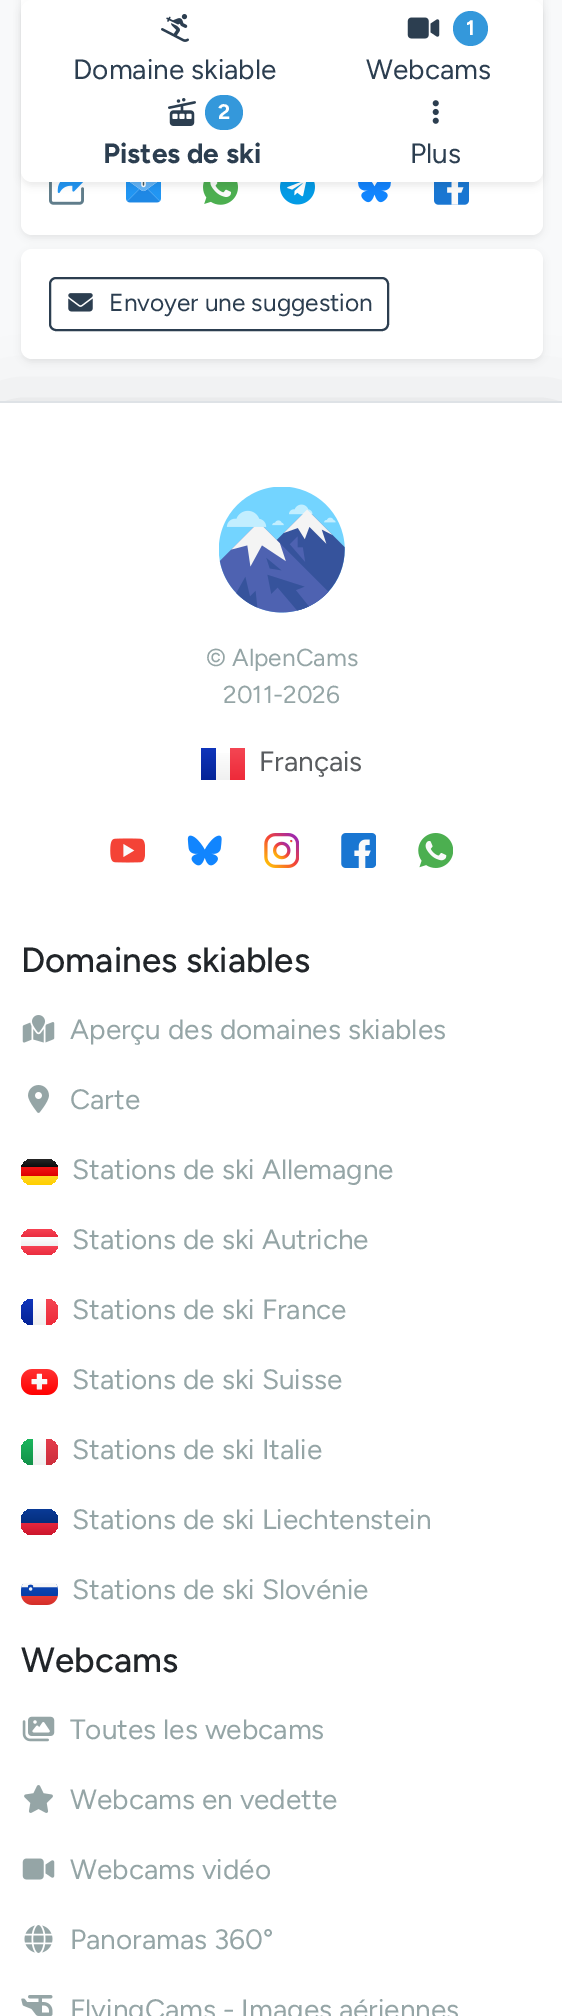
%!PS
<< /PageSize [562 2016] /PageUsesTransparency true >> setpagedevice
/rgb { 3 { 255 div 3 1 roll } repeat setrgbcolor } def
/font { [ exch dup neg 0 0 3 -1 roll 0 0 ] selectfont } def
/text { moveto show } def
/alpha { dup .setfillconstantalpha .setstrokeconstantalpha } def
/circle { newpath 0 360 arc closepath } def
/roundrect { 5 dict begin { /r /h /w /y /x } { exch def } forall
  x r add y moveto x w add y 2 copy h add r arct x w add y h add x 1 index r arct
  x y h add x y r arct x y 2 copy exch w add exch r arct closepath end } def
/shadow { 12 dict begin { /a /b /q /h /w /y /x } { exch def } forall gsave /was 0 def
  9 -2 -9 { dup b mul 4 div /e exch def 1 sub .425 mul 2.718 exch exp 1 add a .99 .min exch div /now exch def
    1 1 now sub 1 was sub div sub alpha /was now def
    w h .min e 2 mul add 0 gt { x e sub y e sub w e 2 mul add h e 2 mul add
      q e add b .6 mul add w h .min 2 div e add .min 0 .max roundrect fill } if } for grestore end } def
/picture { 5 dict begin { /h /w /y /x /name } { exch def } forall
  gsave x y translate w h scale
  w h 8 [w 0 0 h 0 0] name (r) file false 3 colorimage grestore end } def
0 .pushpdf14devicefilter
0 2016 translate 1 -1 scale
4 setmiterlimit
248 249 250 rgb
0 0 562 2016 rectfill
0 0 0 rgb
21 -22 522 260 11 3.5 0.07 shadow
255 255 255 rgb
21 -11 522 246 11 roundrect fill
(img_05.rgb) 49 182 35 23 picture
(img_06.rgb) 126 182 35 21 picture
(img_07.rgb) 203 182 35 23 picture
(img_08.rgb) 280 182 35 23 picture
(img_09.rgb) 358 182 33 21 picture
(img_10.rgb) 434 182 35 23 picture
0 0 0 rgb
21 4 522 182 11 3.5 0.07 shadow
255 255 255 rgb
21 0 522 182 11 roundrect fill
(img_01.rgb) 161 14 28 28 picture
(img_02.rgb) 407 17 33 22 picture
52 152 219 rgb
470.5 28.5 17.5 circle fill
(img_03.rgb) 168 98 28 28 picture
205 95 38 35 17.5 roundrect fill
(img_04.rgb) 432 100 7 24 picture
0 0 0 rgb
21 252 522 110 11 3.5 0.07 shadow
0 429 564 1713 0 42 0.18 shadow
255 255 255 rgb
21 249 522 110 11 roundrect fill
44 62 80 rgb
2 setlinewidth
50 278 338 52 6 roundrect stroke
(img_11.rgb) 68 293 25 19 picture
255 255 255 rgb
0 403 562 1613 rectfill
222 226 230 rgb
0 401 562 2 rectfill
(img_12.rgb) 219 487 126 126 picture
gsave 230 748 moveto 15 0 rlineto 0 32 rlineto -15 0 rlineto closepath clip newpath
<< /ShadingType 2 /ColorSpace /DeviceRGB /Coords [234 748 234 780] /Extend [true true] /Function << /FunctionType 2 /Domain [0 1] /C0 [0.957 0.275 0.325] /C1 [0.933 0.165 0.224] /N 1 >> >> shfill grestore
gsave 201 748 moveto 15 0 rlineto 0 32 rlineto -15 0 rlineto closepath clip newpath
<< /ShadingType 2 /ColorSpace /DeviceRGB /Coords [209 748 209 780] /Extend [true true] /Function << /FunctionType 2 /Domain [0 1] /C0 [0.063 0.208 0.733] /C1 [0.016 0.137 0.588] /N 1 >> >> shfill grestore
gsave 216 753 moveto 14 0 rlineto 0 27 rlineto -14 0 rlineto closepath clip newpath
<< /ShadingType 2 /ColorSpace /DeviceRGB /Coords [223 748 223 780] /Extend [true true] /Function << /FunctionType 2 /Domain [0 1] /C0 [1 1 1] /C1 [0.941 0.941 0.941] /N 1 >> >> shfill grestore
(img_13.rgb) 110 838 35 25 picture
(img_14.rgb) 187 835 35 31 picture
(img_15.rgb) 264 833 35 35 picture
(img_16.rgb) 341 833 35 35 picture
(img_17.rgb) 418 833 35 35 picture
(img_18.rgb) 22 1015 33 28 picture
(img_19.rgb) 28 1085 21 28 picture
gsave
21 1159 37 26 11 roundrect clip newpath
gsave 21 1159 moveto 37 0 rlineto 0 8 rlineto -37 0 rlineto closepath clip newpath
<< /ShadingType 2 /ColorSpace /DeviceRGB /Coords [39 1159 39 1167] /Extend [true true] /Function << /FunctionType 2 /Domain [0 1] /C0 [0.149 0.149 0.149] /C1 [0.051 0.051 0.051] /N 1 >> >> shfill grestore
gsave 21 1167 moveto 37 0 rlineto 0 9 rlineto -37 0 rlineto closepath clip newpath
<< /ShadingType 2 /ColorSpace /DeviceRGB /Coords [39 1167 39 1176] /Extend [true true] /Function << /FunctionType 2 /Domain [0 1] /C0 [0.941 0.082 0.082] /C1 [0.871 0 0] /N 1 >> >> shfill grestore
gsave 21 1176 moveto 37 0 rlineto 0 9 rlineto -37 0 rlineto closepath clip newpath
<< /ShadingType 2 /ColorSpace /DeviceRGB /Coords [39 1176 39 1185] /Extend [true true] /Function << /FunctionType 2 /Domain [0 1] /C0 [1 0.835 0.129] /C1 [1 0.812 0] /N 1 >> >> shfill grestore
grestore
gsave
21 1229 37 26 11 roundrect clip newpath
gsave 21 1229 moveto 37 0 rlineto 0 8 rlineto -37 0 rlineto closepath clip newpath
<< /ShadingType 2 /ColorSpace /DeviceRGB /Coords [39 1229 39 1237] /Extend [true true] /Function << /FunctionType 2 /Domain [0 1] /C0 [0.965 0.259 0.325] /C1 [0.918 0.176 0.247] /N 1 >> >> shfill grestore
gsave 21 1246 moveto 37 0 rlineto 0 9 rlineto -37 0 rlineto closepath clip newpath
<< /ShadingType 2 /ColorSpace /DeviceRGB /Coords [39 1246 39 1255] /Extend [true true] /Function << /FunctionType 2 /Domain [0 1] /C0 [0.965 0.259 0.325] /C1 [0.918 0.176 0.247] /N 1 >> >> shfill grestore
gsave 21 1237 moveto 37 0 rlineto 0 9 rlineto -37 0 rlineto closepath clip newpath
<< /ShadingType 2 /ColorSpace /DeviceRGB /Coords [39 1237 39 1246] /Extend [true true] /Function << /FunctionType 2 /Domain [0 1] /C0 [1 1 1] /C1 [0.941 0.941 0.941] /N 1 >> >> shfill grestore
grestore
gsave 39 1299 moveto 8 0 rlineto 6 0 11 5 11 11 rcurveto 0 4 rlineto 0 6 -5 11 -11 11 rcurveto -8 0 rlineto closepath clip newpath
<< /ShadingType 2 /ColorSpace /DeviceRGB /Coords [48 1299 48 1325] /Extend [true true] /Function << /FunctionType 2 /Domain [0 1] /C0 [0.957 0.275 0.325] /C1 [0.933 0.165 0.224] /N 1 >> >> shfill grestore
gsave 32 1299 moveto 1 0 rlineto 0 26 rlineto -1 0 rlineto -6 0 -11 -5 -11 -11 rcurveto 0 -4 rlineto 0 -6 5 -11 11 -11 rcurveto closepath clip newpath
<< /ShadingType 2 /ColorSpace /DeviceRGB /Coords [27 1299 27 1325] /Extend [true true] /Function << /FunctionType 2 /Domain [0 1] /C0 [0.063 0.208 0.733] /C1 [0.016 0.137 0.588] /N 1 >> >> shfill grestore
gsave 33 1299 moveto 13 0 rlineto 0 26 rlineto -13 0 rlineto closepath clip newpath
<< /ShadingType 2 /ColorSpace /DeviceRGB /Coords [39 1299 39 1325] /Extend [true true] /Function << /FunctionType 2 /Domain [0 1] /C0 [1 1 1] /C1 [0.941 0.941 0.941] /N 1 >> >> shfill grestore
(img_20.rgb) 21 1369 37 26 picture
gsave 39 1439 moveto 8 0 rlineto 6 0 11 5 11 11 rcurveto 0 4 rlineto 0 6 -5 11 -11 11 rcurveto -8 0 rlineto closepath clip newpath
<< /ShadingType 2 /ColorSpace /DeviceRGB /Coords [48 1439 48 1465] /Extend [true true] /Function << /FunctionType 2 /Domain [0 1] /C0 [0.894 0.239 0.298] /C1 [0.8 0.18 0.235] /N 1 >> >> shfill grestore
gsave 32 1439 moveto 1 0 rlineto 0 26 rlineto -1 0 rlineto -6 0 -11 -5 -11 -11 rcurveto 0 -4 rlineto 0 -6 5 -11 11 -11 rcurveto closepath clip newpath
<< /ShadingType 2 /ColorSpace /DeviceRGB /Coords [27 1439 27 1465] /Extend [true true] /Function << /FunctionType 2 /Domain [0 1] /C0 [0.106 0.714 0.365] /C1 [0.075 0.569 0.286] /N 1 >> >> shfill grestore
gsave 33 1439 moveto 13 0 rlineto 0 26 rlineto -13 0 rlineto closepath clip newpath
<< /ShadingType 2 /ColorSpace /DeviceRGB /Coords [39 1439 39 1465] /Extend [true true] /Function << /FunctionType 2 /Domain [0 1] /C0 [1 1 1] /C1 [0.941 0.941 0.941] /N 1 >> >> shfill grestore
gsave 32 1509 moveto 15 0 rlineto 6 0 11 5 11 11 rcurveto 0 3 rlineto -37 0 rlineto 0 -3 rlineto 0 -6 5 -11 11 -11 rcurveto closepath clip newpath
<< /ShadingType 2 /ColorSpace /DeviceRGB /Coords [39 1509 39 1523] /Extend [true true] /Function << /FunctionType 2 /Domain [0 1] /C0 [0.039 0.231 0.592] /C1 [0.016 0.18 0.49] /N 1 >> >> shfill grestore
gsave 21 1523 moveto 37 0 rlineto 0 1 rlineto 0 6 -5 11 -11 11 rcurveto -15 0 rlineto -6 0 -11 -5 -11 -11 rcurveto closepath clip newpath
<< /ShadingType 2 /ColorSpace /DeviceRGB /Coords [39 1523 39 1535] /Extend [true true] /Function << /FunctionType 2 /Domain [0 1] /C0 [0.902 0.153 0.243] /C1 [0.8 0.086 0.173] /N 1 >> >> shfill grestore
(img_21.rgb) 21 1583 37 22 picture
(img_22.rgb) 22 1716 33 26 picture
(img_23.rgb) 24 1785 29 28 picture
(img_24.rgb) 22 1858 33 22 picture
(img_25.rgb) 24 1925 29 28 picture
(img_26.rgb) 21 1995 32 21 picture
/Figtree-Regular 28 font
44 62 80 rgb
(Domaine skiable) 73 79 text
/Figtree-Bold 21 font
255 255 255 rgb
(1) 466 35 text
/Figtree-Regular 28 font
44 62 80 rgb
(Webcams) 366 79 text
/Figtree-Bold 21 font
255 255 255 rgb
(2) 218 119 text
/Figtree-Bold 28 font
44 62 80 rgb
(Pistes de ski) 103 163 text
/Figtree-Regular 28 font
(Plus) 410 163 text
/Figtree-Regular 24.5 font
(Envoyer une suggestion) 109 311 text
149 165 166 rgb
(© AlpenCams) 206 666 text
(2011-2026) 223 703 text
/Figtree-Regular 28 font
89 92 95 rgb
(Français) 259 771 text
/Figtree-Medium 35 font
33 37 41 rgb
(Domaines skiables) 21 972 text
/Figtree-Regular 28 font
149 165 166 rgb
(Aperçu des domaines skiables) 70 1039 text
(Carte) 70 1109 text
(Stations de ski Allemagne) 72 1179 text
(Stations de ski Autriche) 72 1249 text
(Stations de ski France) 72 1319 text
(Stations de ski Suisse) 72 1389 text
(Stations de ski Italie) 72 1459 text
(Stations de ski Liechtenstein) 72 1529 text
(Stations de ski Slovénie) 72 1599 text
/Figtree-Medium 35 font
33 37 41 rgb
(Webcams) 21 1672 text
/Figtree-Regular 28 font
149 165 166 rgb
(Toutes les webcams) 70 1739 text
(Webcams en vedette) 70 1809 text
(Webcams vidéo) 70 1879 text
(Panoramas 360°) 70 1949 text
(FlyingCams - Images aériennes) 70 2019 text
.poppdf14devicefilter showpage
